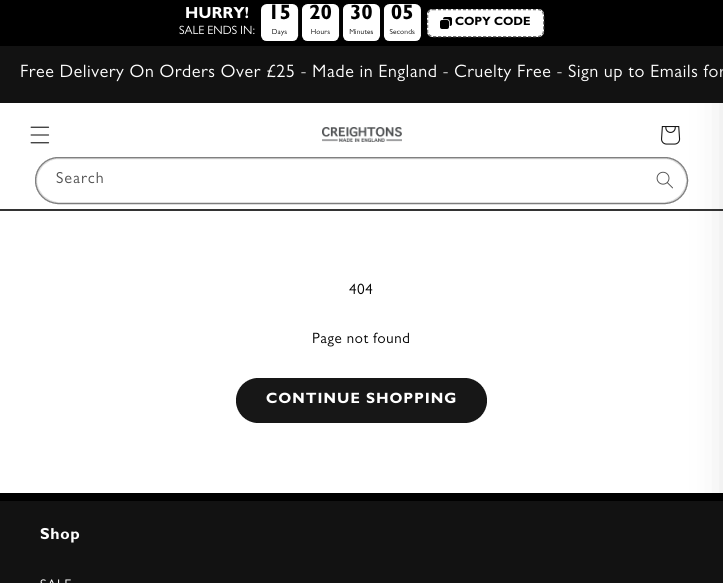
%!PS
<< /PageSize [723 583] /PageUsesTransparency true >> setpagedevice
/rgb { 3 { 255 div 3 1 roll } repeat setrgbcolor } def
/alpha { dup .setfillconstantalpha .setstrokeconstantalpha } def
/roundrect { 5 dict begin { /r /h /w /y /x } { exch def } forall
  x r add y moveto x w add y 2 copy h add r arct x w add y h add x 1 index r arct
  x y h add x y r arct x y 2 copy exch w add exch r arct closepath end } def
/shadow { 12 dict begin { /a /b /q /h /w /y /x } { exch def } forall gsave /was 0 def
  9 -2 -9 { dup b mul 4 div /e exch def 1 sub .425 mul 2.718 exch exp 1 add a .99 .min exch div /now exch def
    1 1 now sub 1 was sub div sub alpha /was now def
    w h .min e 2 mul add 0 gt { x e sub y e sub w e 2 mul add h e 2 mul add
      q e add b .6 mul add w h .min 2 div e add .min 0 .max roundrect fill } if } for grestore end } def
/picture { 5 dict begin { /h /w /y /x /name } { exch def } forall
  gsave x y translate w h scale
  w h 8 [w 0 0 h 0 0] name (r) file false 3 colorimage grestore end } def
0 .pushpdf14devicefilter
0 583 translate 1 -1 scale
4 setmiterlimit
255 255 255 rgb
0 0 723 583 rectfill
0 0 0 rgb
0 0 723 46 rectfill
(img_01.rgb) 186 7 63 12 picture
(img_02.rgb) 179 25 76 10 picture
(img_03.rgb) 261 4 160 37 picture
255 255 255 rgb
427 9 117 28 6 roundrect fill
116 116 116 rgb
[3 2] 0 setdash
433 9.5 moveto 105 0 rlineto 3 0 5.5 2.5 5.5 5.5 rcurveto 0 16 rlineto 0 3 -2.5 5.5 -5.5 5.5 rcurveto -105 0 rlineto -3 0 -5.5 -2.5 -5.5 -5.5 rcurveto 0 -16 rlineto 0 -3 2.5 -5.5 5.5 -5.5 rcurveto closepath stroke
(img_04.rgb) 440 17 12 12 picture
(img_05.rgb) 455 16 75 10 picture
18 18 18 rgb
0 46 723 57 rectfill
(img_06.rgb) 21 64 702 18 picture
51 51 51 rgb
0 209 723 2 rectfill
(img_09.rgb) 661 126 20 19 picture
222 222 222 rgb
[] 0 setdash
36.5 158.5 650 44 22 roundrect stroke
(img_10.rgb) 56 172 47 12 picture
(img_11.rgb) 656 171 17 18 picture
0.55 alpha
23 23 23 rgb
35.5 157.5 652 46 23 roundrect stroke
1 alpha
18 18 18 rgb
0 501 723 82 rectfill
0 0 0 rgb
0 493 723 8 rectfill
723 0 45 583 0 15 0.1 shadow
(img_07.rgb) 30 126 20 18 picture
(img_08.rgb) 322 127 80 15 picture
(img_12.rgb) 349 283 24 12 picture
(img_13.rgb) 313 332 96 15 picture
23 23 23 rgb
236 378 251 45 22.5 roundrect fill
(img_14.rgb) 266 392 190 12 picture
(img_15.rgb) 40 527 40 16 picture
(img_16.rgb) 40 579 31 4 picture
.poppdf14devicefilter showpage
